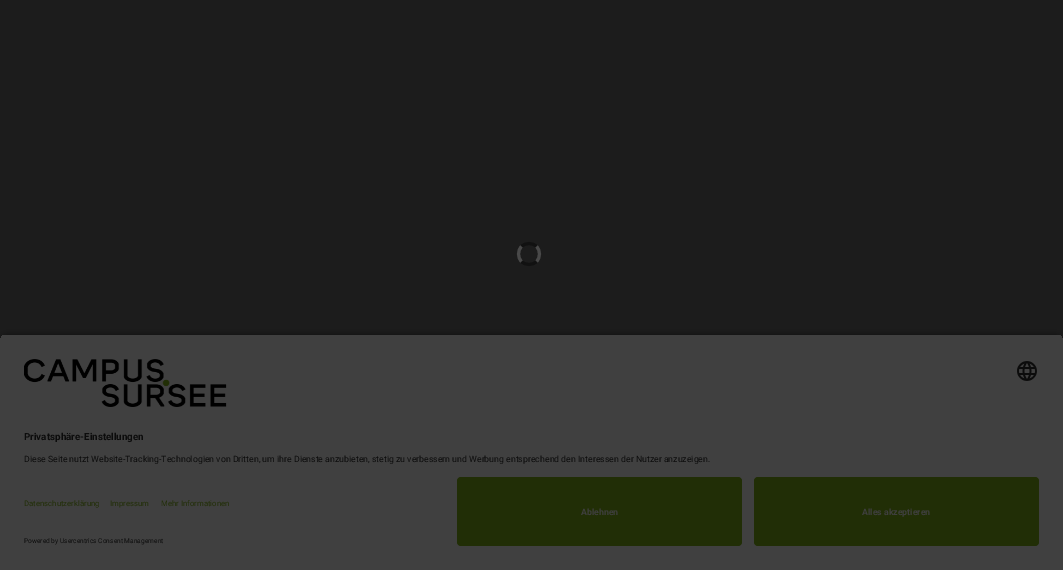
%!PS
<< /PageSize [1063 570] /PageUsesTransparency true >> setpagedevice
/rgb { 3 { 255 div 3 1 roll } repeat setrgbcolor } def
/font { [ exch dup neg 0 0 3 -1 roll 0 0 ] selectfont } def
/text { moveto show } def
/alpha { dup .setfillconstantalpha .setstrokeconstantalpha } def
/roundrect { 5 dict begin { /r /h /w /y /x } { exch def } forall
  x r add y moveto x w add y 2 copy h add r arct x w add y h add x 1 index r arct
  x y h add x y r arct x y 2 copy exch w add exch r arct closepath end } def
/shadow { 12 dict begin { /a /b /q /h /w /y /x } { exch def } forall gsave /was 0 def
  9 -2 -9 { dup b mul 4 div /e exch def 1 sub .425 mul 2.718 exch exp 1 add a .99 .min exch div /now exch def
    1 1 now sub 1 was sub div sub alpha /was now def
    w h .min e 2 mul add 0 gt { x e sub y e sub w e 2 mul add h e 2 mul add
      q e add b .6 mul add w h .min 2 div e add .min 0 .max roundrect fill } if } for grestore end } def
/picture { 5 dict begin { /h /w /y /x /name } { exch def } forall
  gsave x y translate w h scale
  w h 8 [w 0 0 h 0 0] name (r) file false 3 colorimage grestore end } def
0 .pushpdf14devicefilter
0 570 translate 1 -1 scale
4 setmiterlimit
28 28 28 rgb
0 0 1063 570 rectfill
17 17 17 rgb
3 setlinewidth
521.5 246.5 moveto 4 -4 11 -4 15 0 rcurveto stroke
0.2 alpha
255 255 255 rgb
536.5 246.5 moveto 4 4 4 11 0 15 rcurveto stroke
0.4 alpha
0 0 0 rgb
536.5 261.5 moveto -4 4 -11 4 -15 0 rcurveto stroke
0.2 alpha
255 255 255 rgb
521.5 261.5 moveto -4 -4 -4 -11 0 -15 rcurveto stroke
1 alpha
0 0 0 rgb
0 337 1063 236 8 3.5 0.8 shadow
gsave
8 334 moveto 1047 0 rlineto 4.5 0 8 3.5 8 8 rcurveto 0 127 rlineto -1063 0 rlineto 0 -127 rlineto 0 -4.5 3.5 -8 8 -8 rcurveto closepath clip newpath
64 64 64 rgb
0 335 1063 134 rectfill
grestore
(img_01.rgb) 24 359 203 48 picture
(img_02.rgb) 1017 361 20 20 picture
64 64 64 rgb
0 469 1063 101 rectfill
33 46 6 rgb
457 477 285 69 4 roundrect fill
754 477 285 69 4 roundrect fill
/Roboto-Bold 9.8 font
12 12 12 rgb
(Privatsphäre-Einstellungen) 24 440 text
/Roboto-Regular 8.75 font
(Diese Seite nutzt Website-Tracking-Technologien von Dritten, um ihre Dienste anzubieten, stetig zu verbessern und Werbung entsprechend den Interessen der Nutzer anzuzeigen.) 24 462 text
/Roboto-Regular 7.75 font
33 46 6 rgb
(Datenschutzerklärung) 24 506 text
(Impressum) 110 506 text
(Mehr Informationen) 161 506 text
/Roboto-Regular 6.6 font
12 12 12 rgb
(Powered by Usercentrics Consent Management) 24 543 text
/Roboto-Bold 8.75 font
63 63 63 rgb
(Ablehnen) 581 515 text
(Alles akzeptieren) 862 515 text
.poppdf14devicefilter showpage
